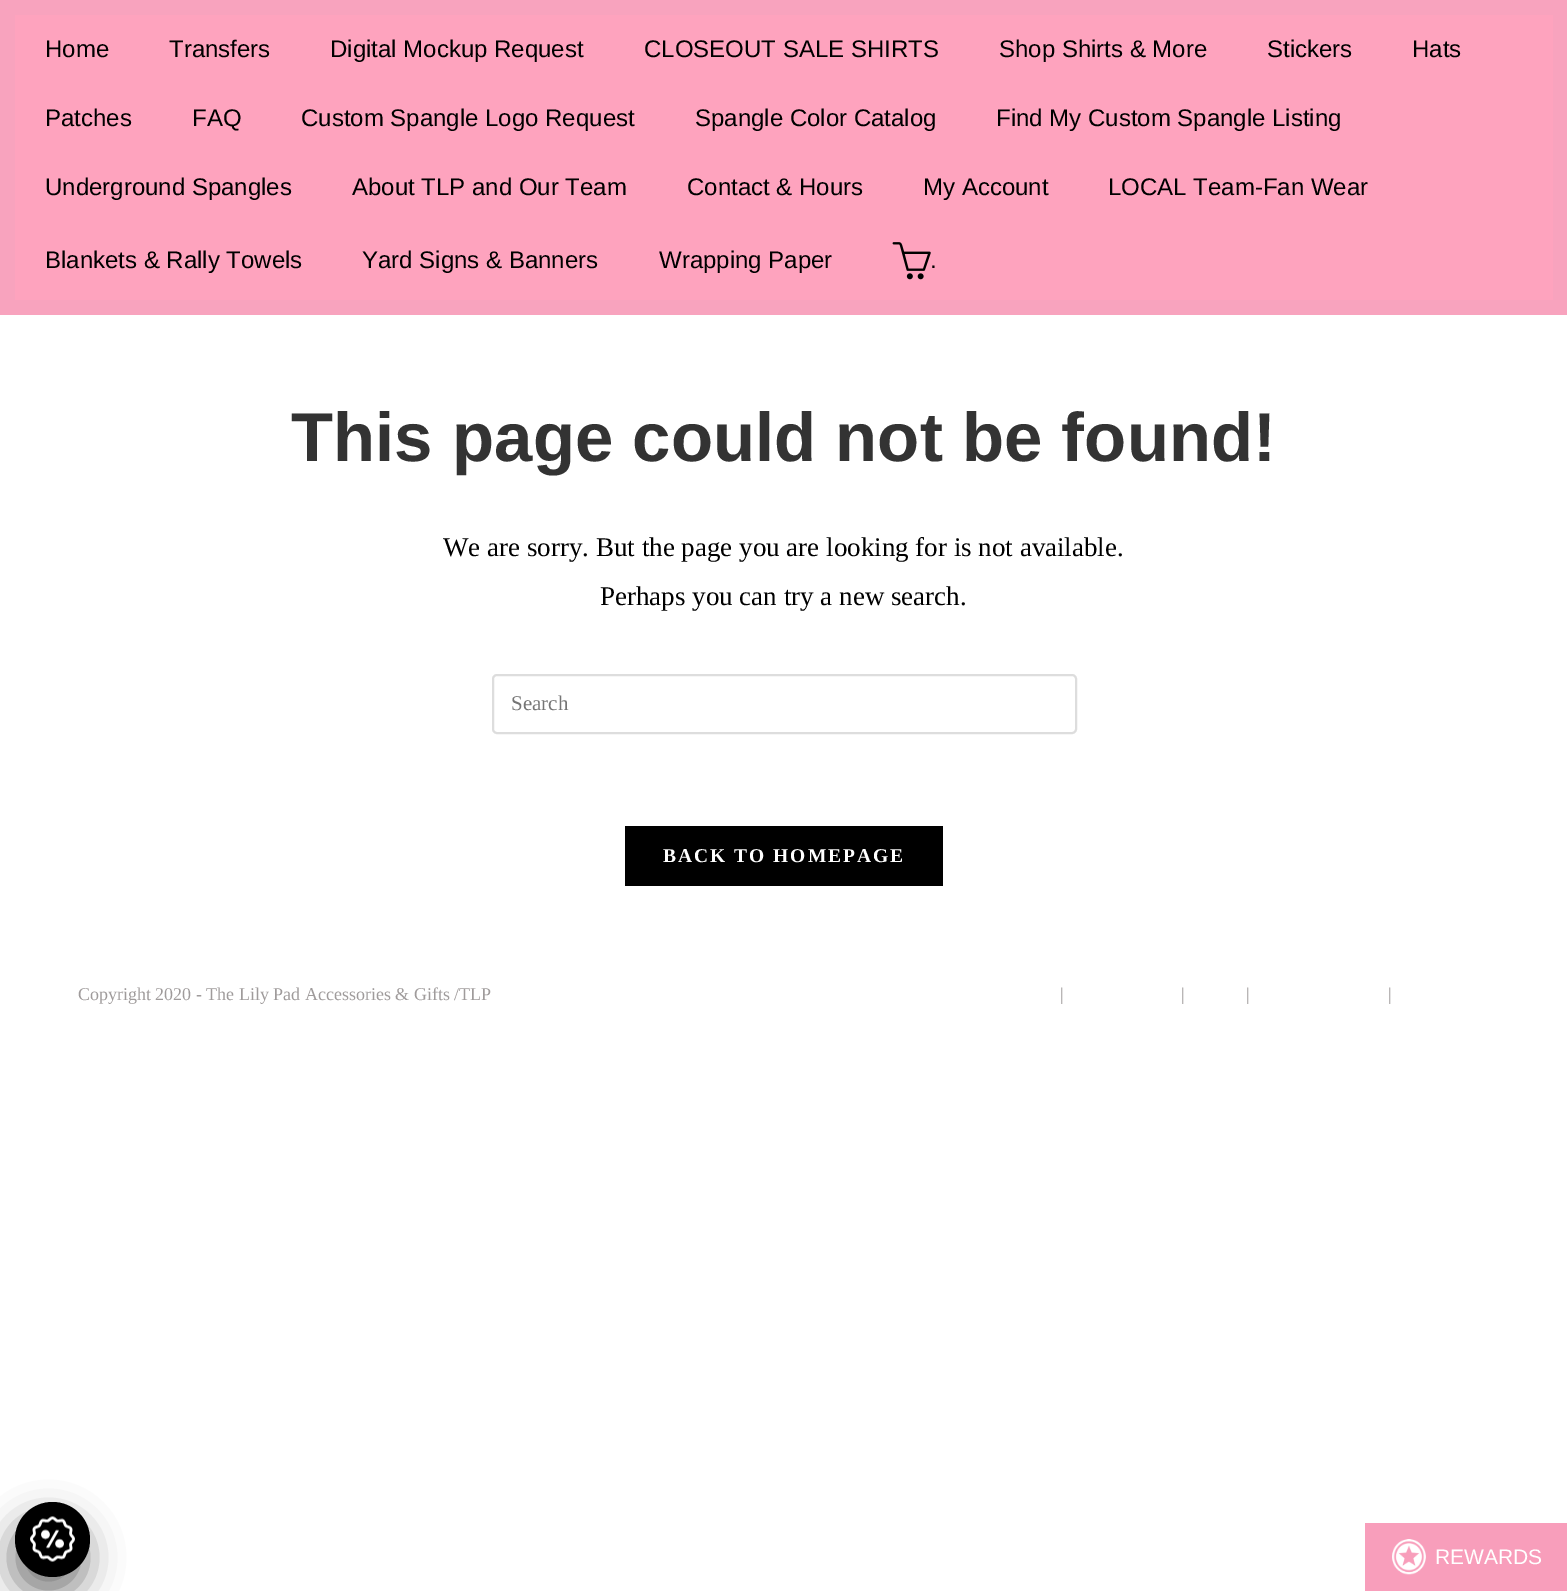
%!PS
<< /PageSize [1567 1591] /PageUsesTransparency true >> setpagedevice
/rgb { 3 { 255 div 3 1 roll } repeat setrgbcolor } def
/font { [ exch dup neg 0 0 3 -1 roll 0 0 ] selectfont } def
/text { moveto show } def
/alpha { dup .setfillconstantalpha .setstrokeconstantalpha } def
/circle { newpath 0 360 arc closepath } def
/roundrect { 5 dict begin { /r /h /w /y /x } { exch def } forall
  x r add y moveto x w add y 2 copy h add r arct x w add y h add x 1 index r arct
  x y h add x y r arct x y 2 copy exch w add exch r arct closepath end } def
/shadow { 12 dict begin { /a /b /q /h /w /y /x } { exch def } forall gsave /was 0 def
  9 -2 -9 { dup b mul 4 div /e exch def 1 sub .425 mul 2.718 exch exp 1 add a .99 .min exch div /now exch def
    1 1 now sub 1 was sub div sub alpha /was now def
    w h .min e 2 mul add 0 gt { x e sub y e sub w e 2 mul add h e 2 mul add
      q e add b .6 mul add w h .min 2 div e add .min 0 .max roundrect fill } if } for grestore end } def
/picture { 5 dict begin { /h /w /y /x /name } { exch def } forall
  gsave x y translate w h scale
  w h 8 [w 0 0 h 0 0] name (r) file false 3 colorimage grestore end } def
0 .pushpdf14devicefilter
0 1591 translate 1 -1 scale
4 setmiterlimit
255 255 255 rgb
0 0 1567 1591 rectfill
248 163 190 rgb
0 0 1567 315 rectfill
254 163 190 rgb
15 15 1538 285 rectfill
(img_01.rgb) 892 242 39 38 picture
221 221 221 rgb
2 setlinewidth
493 675 583 58 4 roundrect stroke
0 0 0 rgb
625 826 318 60 rectfill
11 1520 75 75 37.5 18 0.5 shadow
52.5 1539.5 37.5 circle fill
(img_02.rgb) 30 1516 45 46 picture
248 158 187 rgb
1365 1523 202 68 rectfill
(img_03.rgb) 1392 1539 34 36 picture
/LiberationSans-Regular 24 font
0 0 0 rgb
(Home) 45 57 text
(Transfers) 169 57 text
(Digital Mockup Request) 330 57 text
(CLOSEOUT SALE SHIRTS) 644 57 text
(Shop Shirts & More) 999 57 text
(Stickers) 1267 57 text
(Hats) 1412 57 text
(Patches) 45 126 text
(FAQ) 192 126 text
(Custom Spangle Logo Request) 301 126 text
(Spangle Color Catalog) 695 126 text
(Find My Custom Spangle Listing) 996 126 text
(Underground Spangles) 45 195 text
(About TLP and Our Team) 352 195 text
(Contact & Hours) 687 195 text
(My Account) 923 195 text
(LOCAL Team-Fan Wear) 1108 195 text
(Blankets & Rally Towels) 45 268 text
(Yard Signs & Banners) 362 268 text
(Wrapping Paper) 659 268 text
(.) 930 268 text
/LiberationSans-Bold 69 font
51 51 51 rgb
(This page could not be found!) 291 461 text
/LiberationSerif-Regular 27 font
0 0 0 rgb
(We are sorry. But the page you are looking for is not available.) 443 556 text
(Perhaps you can try a new search.) 600 605 text
/LiberationSerif-Regular 21 font
117 117 117 rgb
(Search) 511 710 text
/LiberationSerif-Bold 19.5 font
255 255 255 rgb
663 862 moveto 2 0 (BACK TO HOMEPAGE) ashow
/LiberationSerif-Regular 18 font
159 155 155 rgb
(Copyright 2020 - The Lily Pad Accessories & Gifts /TLP) 78 1000 text
(|) 1060 1000 text
(|) 1181 1000 text
(|) 1246 1000 text
(|) 1388 1000 text
/LiberationSans-Regular 21 font
255 255 255 rgb
(REWARDS) 1435 1564 text
.poppdf14devicefilter showpage
